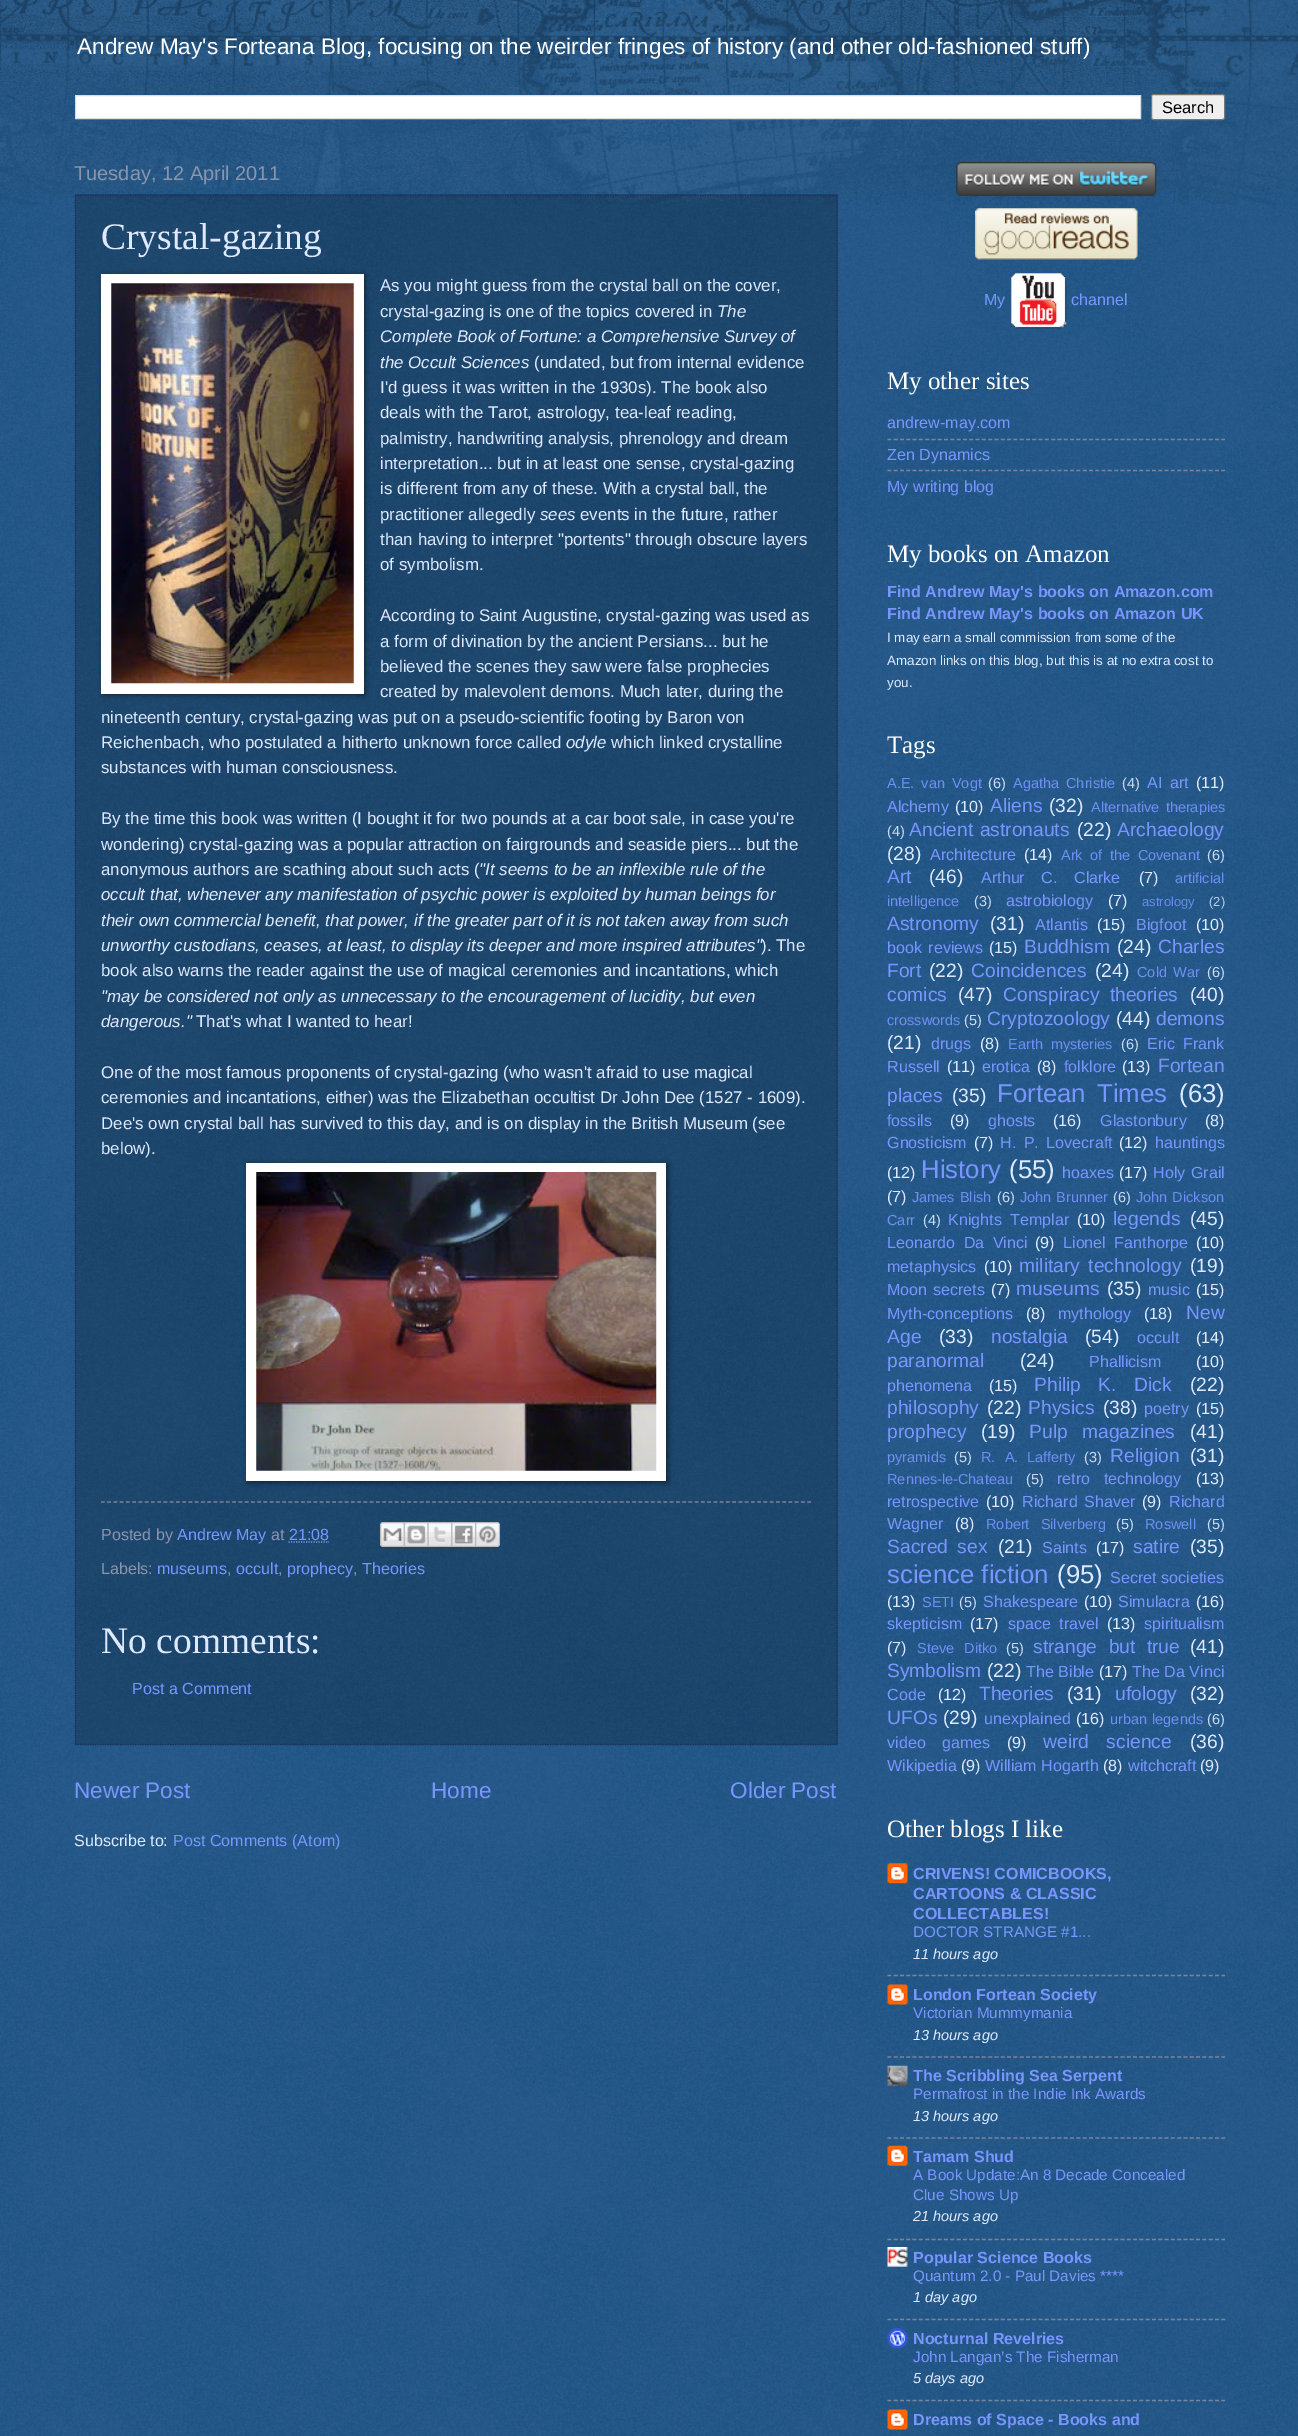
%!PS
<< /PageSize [1298 2436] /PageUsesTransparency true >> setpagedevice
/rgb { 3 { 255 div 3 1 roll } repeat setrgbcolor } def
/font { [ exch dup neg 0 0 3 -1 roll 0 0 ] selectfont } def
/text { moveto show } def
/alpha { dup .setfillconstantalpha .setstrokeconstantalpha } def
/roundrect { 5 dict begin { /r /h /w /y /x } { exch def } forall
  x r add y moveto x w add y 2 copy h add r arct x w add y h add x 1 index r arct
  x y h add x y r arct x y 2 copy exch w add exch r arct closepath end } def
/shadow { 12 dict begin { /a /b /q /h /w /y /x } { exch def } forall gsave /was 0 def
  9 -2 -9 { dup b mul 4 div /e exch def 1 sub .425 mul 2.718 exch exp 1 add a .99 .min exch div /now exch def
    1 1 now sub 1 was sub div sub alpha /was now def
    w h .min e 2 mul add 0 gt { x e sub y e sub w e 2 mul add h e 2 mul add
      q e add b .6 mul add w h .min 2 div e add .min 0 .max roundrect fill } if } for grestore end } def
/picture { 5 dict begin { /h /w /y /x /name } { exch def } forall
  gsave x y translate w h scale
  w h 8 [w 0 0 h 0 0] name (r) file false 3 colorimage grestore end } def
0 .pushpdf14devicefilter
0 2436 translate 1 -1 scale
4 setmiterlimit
0 60 116 rgb
0 0 1298 2436 rectfill
(img_01.rgb) 0 0 1298 2436 picture
(img_02.rgb) 0 0 1298 205 picture
255 255 255 rgb
75.5 95.5 moveto 1065 0 rlineto 0 23 rlineto -1065 0 rlineto closepath gsave fill grestore
221 221 221 rgb
stroke
239 239 239 rgb
1151.5 94.5 73 25 2 roundrect gsave fill grestore
118 118 118 rgb
stroke
0.2 alpha
0 0 0 rgb
75 194 763 1551 rectfill
1 alpha
29 48 87 rgb
1.2 setlinewidth
[1.25 1.25] 0 setdash
75 195.5 moveto 762.5 0 rlineto stroke
837 195 moveto 0 1550 rlineto stroke
75 1744.5 moveto 762.5 0 rlineto stroke
75.5 195 moveto 0 1550 rlineto stroke
0 0 0 rgb
103 275 262 420 0 3 0.5 shadow
255 255 255 rgb
101 274 263 420 rectfill
(img_03.rgb) 111 283 243 401 picture
0 0 0 rgb
248 1164 420 319 0 3 0.5 shadow
255 255 255 rgb
246 1163 420 318 rectfill
(img_04.rgb) 256 1172 401 299 picture
122 133 155 rgb
[3.75 2.5] 0 setdash
101 1502 moveto 710 0 rlineto stroke
121 149 255 rgb
[1.25 1.25] 0 setdash
288.5 1542 moveto 40.5 0 rlineto stroke
(img_05.rgb) 380 1522 24 25 picture
(img_06.rgb) 403 1522 25 25 picture
(img_07.rgb) 427 1522 25 25 picture
(img_08.rgb) 451 1522 24 25 picture
(img_09.rgb) 475 1522 25 25 picture
(img_10.rgb) 956 162 201 34 picture
(img_11.rgb) 975 208 163 52 picture
(img_12.rgb) 1011 273 56 56 picture
122 133 155 rgb
[3.75 2.55] 0 setdash
887.5 439.5 moveto 337.5 0 rlineto stroke
887.5 470.5 moveto 337.5 0 rlineto stroke
(img_13.rgb) 887 1863 21 21 picture
887.5 1975.5 moveto 337.5 0 rlineto stroke
(img_14.rgb) 887 1984 21 21 picture
887.5 2057 moveto 337.5 0 rlineto stroke
(img_15.rgb) 887 2065 21 21 picture
887.5 2138 moveto 337.5 0 rlineto stroke
(img_16.rgb) 887 2145 21 21 picture
887.5 2239.5 moveto 337.5 0 rlineto stroke
(img_17.rgb) 887 2247 21 20 picture
887.5 2319.5 moveto 337.5 0 rlineto stroke
(img_18.rgb) 887 2328 21 21 picture
887.5 2400.5 moveto 337.5 0 rlineto stroke
(img_19.rgb) 887 2409 21 21 picture
/LiberationSans-Regular 22.55 font
255 255 255 rgb
(Andrew May's Forteana Blog, focusing on the weirder fringes of history \(and other old-fashioned stuff\)) 77 54 text
/LiberationSans-Regular 16.5 font
0 0 0 rgb
(Search) 1162 113 text
/LiberationSans-Regular 20 font
138 149 171 rgb
(Tuesday, 12 April 2011) 74 180 text
/LiberationSerif-Regular 37.5 font
222 233 255 rgb
(Crystal-gazing) 101 249 text
/LiberationSans-Regular 16.9 font
(As you might guess from the crystal ball on the cover,) 380 291 text
(crystal-gazing is one of the topics covered in) 380 317 text
/LiberationSans-Italic 16.9 font
(The) 717 317 text
(Complete Book of Fortune: a Comprehensive Survey of) 380 342 text
(the Occult Sciences) 380 368 text
/LiberationSans-Regular 16.9 font
(\(undated, but from internal evidence) 534 368 text
(I'd guess it was written in the 1930s\). The book also) 380 393 text
(deals with the Tarot, astrology, tea-leaf reading,) 380 418 text
(palmistry, handwriting analysis, phrenology and dream) 380 444 text
(interpretation... but in at least one sense, crystal-gazing) 380 469 text
(is different from any of these. With a crystal ball, the) 380 494 text
(practitioner allegedly) 380 520 text
/LiberationSans-Italic 16.9 font
(sees) 540 520 text
/LiberationSans-Regular 16.9 font
(events in the future, rather) 580 520 text
(than having to interpret "portents" through obscure layers) 380 545 text
(of symbolism.) 380 570 text
(According to Saint Augustine, crystal-gazing was used as) 380 621 text
(a form of divination by the ancient Persians... but he) 380 647 text
(believed the scenes they saw were false prophecies) 380 672 text
(created by malevolent demons. Much later, during the) 380 697 text
(nineteenth century, crystal-gazing was put on a pseudo-scientific footing by Baron von) 101 723 text
(Reichenbach, who postulated a hitherto unknown force called) 101 748 text
/LiberationSans-Italic 16.9 font
(odyle) 566 748 text
/LiberationSans-Regular 16.9 font
(which linked crystalline) 611 748 text
(substances with human consciousness.) 101 773 text
(By the time this book was written \(I bought it for two pounds at a car boot sale, in case you're) 101 824 text
(wondering\) crystal-gazing was a popular attraction on fairgrounds and seaside piers... but the) 101 850 text
(anonymous authors are scathing about such acts \() 101 875 text
/LiberationSans-Italic 16.9 font
("It seems to be an inflexible rule of the) 479 875 text
(occult that, whenever any manifestation of psychic power is exploited by human beings for) 101 900 text
(their own commercial benefit, that power, if the greater part of it is not taken away from such) 101 926 text
(unworthy custodians, ceases, at least, to display its deeper and more inspired attributes") 101 951 text
/LiberationSans-Regular 16.9 font
(\). The) 761 951 text
(book also warns the reader against the use of magical ceremonies and incantations, which) 101 976 text
/LiberationSans-Italic 16.9 font
("may be considered not only as unnecessary to the encouragement of lucidity, but even) 101 1002 text
(dangerous.") 101 1027 text
/LiberationSans-Regular 16.9 font
(That's what I wanted to hear!) 196 1027 text
(One of the most famous proponents of crystal-gazing \(who wasn't afraid to use magical) 101 1078 text
(ceremonies and incantations, either\) was the Elizabethan occultist Dr John Dee \(1527 - 1609\).) 101 1103 text
(Dee's own crystal ball has survived to this day, and is on display in the British Museum \(see) 101 1129 text
(below\).) 101 1154 text
/LiberationSans-Regular 16.1 font
138 149 171 rgb
(Posted by) 101 1540 text
121 149 255 rgb
(Andrew May) 177 1540 text
138 149 171 rgb
(at) 271 1540 text
121 149 255 rgb
(21:08) 289 1540 text
138 149 171 rgb
(Labels:) 101 1574 text
121 149 255 rgb
(museums) 157 1574 text
138 149 171 rgb
(,) 227 1574 text
121 149 255 rgb
(occult) 236 1574 text
138 149 171 rgb
(,) 278 1574 text
121 149 255 rgb
(prophecy) 287 1574 text
138 149 171 rgb
(,) 353 1574 text
121 149 255 rgb
(Theories) 362 1574 text
/LiberationSerif-Regular 37.5 font
222 233 255 rgb
(No comments:) 101 1653 text
/LiberationSans-Regular 16.1 font
121 149 255 rgb
(Post a Comment) 132 1694 text
/LiberationSans-Regular 22.55 font
(Newer Post) 74 1798 text
(Home) 431 1798 text
(Older Post) 730 1798 text
/LiberationSans-Regular 16.1 font
222 233 255 rgb
(Subscribe to:) 74 1846 text
121 149 255 rgb
(Post Comments \(Atom\)) 173 1846 text
(My) 984 305 text
(channel) 1071 305 text
/LiberationSerif-Regular 25 font
255 255 255 rgb
(My other sites) 887 389 text
/LiberationSans-Regular 16.1 font
121 149 255 rgb
(andrew-may.com) 887 428 text
(Zen Dynamics) 887 460 text
(My writing blog) 887 492 text
/LiberationSerif-Regular 25 font
255 255 255 rgb
(My books on Amazon) 887 562 text
/LiberationSans-Bold 16.1 font
121 149 255 rgb
(Find Andrew May's books on Amazon.com) 887 597 text
(Find Andrew May's books on Amazon UK) 887 619 text
/LiberationSans-Regular 13.4 font
222 233 255 rgb
(I may earn a small commission from some of the) 887 642 text
(Amazon links on this blog, but this is at no extra cost to) 887 665 text
(you.) 887 687 text
/LiberationSerif-Regular 25 font
255 255 255 rgb
(Tags) 887 753 text
/LiberationSans-Regular 14.5 font
112 143 243 rgb
887 788 moveto 3 0 32 (A.E. van Vogt) widthshow
203 218 243 rgb
(\(6\)) 988 788 text
112 143 243 rgb
1013 788 moveto 3 0 32 (Agatha Christie) widthshow
203 218 243 rgb
(\(4\)) 1122 788 text
/LiberationSans-Regular 16.1 font
121 149 255 rgb
1147 788 moveto 3 0 32 (AI art) widthshow
222 233 255 rgb
(\(11\)) 1196 788 text
121 149 255 rgb
(Alchemy) 887 812 text
222 233 255 rgb
(\(10\)) 955 812 text
/LiberationSans-Regular 19.25 font
121 149 255 rgb
(Aliens) 990 812 text
222 233 255 rgb
(\(32\)) 1049 812 text
/LiberationSans-Regular 14.5 font
112 143 243 rgb
1091 812 moveto 2 0 32 (Alternative therapies) widthshow
203 218 243 rgb
(\(4\)) 887 836 text
/LiberationSans-Regular 19.25 font
121 149 255 rgb
909 836 moveto 1 0 32 (Ancient astronauts) widthshow
222 233 255 rgb
(\(22\)) 1077 836 text
121 149 255 rgb
(Archaeology) 1117 836 text
222 233 255 rgb
(\(28\)) 887 860 text
/LiberationSans-Regular 16.1 font
121 149 255 rgb
(Architecture) 930 860 text
222 233 255 rgb
(\(14\)) 1024 860 text
/LiberationSans-Regular 14.5 font
112 143 243 rgb
1061 860 moveto 3.5 0 32 (Ark of the Covenant) widthshow
203 218 243 rgb
(\(6\)) 1207 860 text
/LiberationSans-Regular 19.25 font
121 149 255 rgb
(Art) 887 883 text
222 233 255 rgb
(\(46\)) 929 883 text
/LiberationSans-Regular 16.1 font
121 149 255 rgb
981 883 moveto 12 0 32 (Arthur C. Clarke) widthshow
222 233 255 rgb
(\(7\)) 1139 883 text
/LiberationSans-Regular 14.5 font
112 143 243 rgb
(artificial) 1175 883 text
(intelligence) 887 906 text
203 218 243 rgb
(\(3\)) 974 906 text
/LiberationSans-Regular 16.1 font
121 149 255 rgb
(astrobiology) 1006 906 text
222 233 255 rgb
(\(7\)) 1108 906 text
/LiberationSans-Regular 13 font
104 137 231 rgb
(astrology) 1142 906 text
185 204 231 rgb
(\(2\)) 1209 906 text
/LiberationSans-Regular 19.25 font
121 149 255 rgb
(Astronomy) 887 930 text
222 233 255 rgb
(\(31\)) 990 930 text
/LiberationSans-Regular 16.1 font
121 149 255 rgb
(Atlantis) 1035 930 text
222 233 255 rgb
(\(15\)) 1097 930 text
121 149 255 rgb
(Bigfoot) 1136 930 text
222 233 255 rgb
(\(10\)) 1196 930 text
121 149 255 rgb
887 953 moveto 2 0 32 (book reviews) widthshow
222 233 255 rgb
(\(15\)) 989 953 text
/LiberationSans-Regular 19.25 font
121 149 255 rgb
(Buddhism) 1024 953 text
222 233 255 rgb
(\(24\)) 1117 953 text
121 149 255 rgb
(Charles) 1158 953 text
(Fort) 887 977 text
222 233 255 rgb
(\(22\)) 929 977 text
121 149 255 rgb
(Coincidences) 971 977 text
222 233 255 rgb
(\(24\)) 1095 977 text
/LiberationSans-Regular 14.5 font
112 143 243 rgb
1137 977 moveto 2 0 32 (Cold War) widthshow
203 218 243 rgb
(\(6\)) 1207 977 text
/LiberationSans-Regular 19.25 font
121 149 255 rgb
(comics) 887 1001 text
222 233 255 rgb
(\(47\)) 958 1001 text
121 149 255 rgb
1003 1001 moveto 5 0 32 (Conspiracy theories) widthshow
222 233 255 rgb
(\(40\)) 1190 1001 text
/LiberationSans-Regular 14.5 font
112 143 243 rgb
(crosswords) 887 1025 text
203 218 243 rgb
(\(5\)) 964 1025 text
/LiberationSans-Regular 19.25 font
121 149 255 rgb
(Cryptozoology) 987 1025 text
222 233 255 rgb
(\(44\)) 1116 1025 text
121 149 255 rgb
(demons) 1156 1025 text
222 233 255 rgb
(\(21\)) 887 1049 text
/LiberationSans-Regular 16.1 font
121 149 255 rgb
(drugs) 931 1049 text
222 233 255 rgb
(\(8\)) 980 1049 text
/LiberationSans-Regular 14.5 font
112 143 243 rgb
1008 1049 moveto 4 0 32 (Earth mysteries) widthshow
203 218 243 rgb
(\(6\)) 1121 1049 text
/LiberationSans-Regular 16.1 font
121 149 255 rgb
1147 1049 moveto 4 0 32 (Eric Frank) widthshow
(Russell) 887 1072 text
222 233 255 rgb
(\(11\)) 947 1072 text
121 149 255 rgb
(erotica) 982 1072 text
222 233 255 rgb
(\(8\)) 1037 1072 text
121 149 255 rgb
(folklore) 1064 1072 text
222 233 255 rgb
(\(13\)) 1122 1072 text
/LiberationSans-Regular 19.25 font
121 149 255 rgb
(Fortean) 1158 1072 text
(places) 887 1102 text
222 233 255 rgb
(\(35\)) 952 1102 text
/LiberationSans-Regular 25.75 font
121 149 255 rgb
997 1102 moveto 4 0 32 (Fortean Times) widthshow
222 233 255 rgb
(\(63\)) 1179 1102 text
/LiberationSans-Regular 16.1 font
121 149 255 rgb
(fossils) 887 1126 text
222 233 255 rgb
(\(9\)) 950 1126 text
121 149 255 rgb
(ghosts) 988 1126 text
222 233 255 rgb
(\(16\)) 1053 1126 text
121 149 255 rgb
(Glastonbury) 1100 1126 text
222 233 255 rgb
(\(8\)) 1205 1126 text
121 149 255 rgb
(Gnosticism) 887 1148 text
222 233 255 rgb
(\(7\)) 974 1148 text
121 149 255 rgb
1000 1148 moveto 3 0 32 (H. P. Lovecraft) widthshow
222 233 255 rgb
(\(12\)) 1119 1148 text
121 149 255 rgb
(hauntings) 1155 1148 text
222 233 255 rgb
(\(12\)) 887 1178 text
/LiberationSans-Regular 25.75 font
121 149 255 rgb
(History) 921 1178 text
222 233 255 rgb
(\(55\)) 1009 1178 text
/LiberationSans-Regular 16.1 font
121 149 255 rgb
(hoaxes) 1062 1178 text
222 233 255 rgb
(\(17\)) 1119 1178 text
121 149 255 rgb
1153 1178 moveto 1 0 32 (Holy Grail) widthshow
222 233 255 rgb
(\(7\)) 887 1202 text
/LiberationSans-Regular 14.5 font
112 143 243 rgb
912 1202 moveto 1 0 32 (James Blish) widthshow
203 218 243 rgb
(\(6\)) 997 1202 text
112 143 243 rgb
1020 1202 moveto 1 0 32 (John Brunner) widthshow
203 218 243 rgb
(\(6\)) 1113 1202 text
112 143 243 rgb
1136 1202 moveto 1 0 32 (John Dickson) widthshow
(Carr) 887 1225 text
203 218 243 rgb
(\(4\)) 923 1225 text
/LiberationSans-Regular 16.1 font
121 149 255 rgb
948 1225 moveto 4 0 32 (Knights Templar) widthshow
222 233 255 rgb
(\(10\)) 1077 1225 text
/LiberationSans-Regular 19.25 font
121 149 255 rgb
(legends) 1113 1225 text
222 233 255 rgb
(\(45\)) 1190 1225 text
/LiberationSans-Regular 16.1 font
121 149 255 rgb
887 1248 moveto 4 0 32 (Leonardo Da Vinci) widthshow
222 233 255 rgb
(\(9\)) 1035 1248 text
121 149 255 rgb
1063 1248 moveto 4 0 32 (Lionel Fanthorpe) widthshow
222 233 255 rgb
(\(10\)) 1196 1248 text
121 149 255 rgb
(metaphysics) 887 1272 text
222 233 255 rgb
(\(10\)) 984 1272 text
/LiberationSans-Regular 19.25 font
121 149 255 rgb
1019 1272 moveto 3 0 32 (military technology) widthshow
222 233 255 rgb
(\(19\)) 1190 1272 text
/LiberationSans-Regular 16.1 font
121 149 255 rgb
887 1295 moveto 1 0 32 (Moon secrets) widthshow
222 233 255 rgb
(\(7\)) 991 1295 text
/LiberationSans-Regular 19.25 font
121 149 255 rgb
(museums) 1016 1295 text
222 233 255 rgb
(\(35\)) 1107 1295 text
/LiberationSans-Regular 16.1 font
121 149 255 rgb
(music) 1148 1295 text
222 233 255 rgb
(\(15\)) 1196 1295 text
121 149 255 rgb
(Myth-conceptions) 887 1319 text
222 233 255 rgb
(\(8\)) 1026 1319 text
121 149 255 rgb
(mythology) 1058 1319 text
222 233 255 rgb
(\(18\)) 1144 1319 text
/LiberationSans-Regular 19.25 font
121 149 255 rgb
(New) 1186 1319 text
(Age) 887 1343 text
222 233 255 rgb
(\(33\)) 939 1343 text
121 149 255 rgb
(nostalgia) 991 1343 text
222 233 255 rgb
(\(54\)) 1085 1343 text
/LiberationSans-Regular 16.1 font
121 149 255 rgb
(occult) 1137 1343 text
222 233 255 rgb
(\(14\)) 1196 1343 text
/LiberationSans-Regular 19.25 font
121 149 255 rgb
(paranormal) 887 1367 text
222 233 255 rgb
(\(24\)) 1020 1367 text
/LiberationSans-Regular 16.1 font
121 149 255 rgb
(Phallicism) 1089 1367 text
222 233 255 rgb
(\(10\)) 1196 1367 text
121 149 255 rgb
(phenomena) 887 1391 text
222 233 255 rgb
(\(15\)) 989 1391 text
/LiberationSans-Regular 19.25 font
121 149 255 rgb
1034 1391 moveto 12 0 32 (Philip K. Dick) widthshow
222 233 255 rgb
(\(22\)) 1190 1391 text
121 149 255 rgb
(philosophy) 887 1414 text
222 233 255 rgb
(\(22\)) 987 1414 text
121 149 255 rgb
(Physics) 1028 1414 text
222 233 255 rgb
(\(38\)) 1103 1414 text
/LiberationSans-Regular 16.1 font
121 149 255 rgb
(poetry) 1144 1414 text
222 233 255 rgb
(\(15\)) 1196 1414 text
/LiberationSans-Regular 19.25 font
121 149 255 rgb
(prophecy) 887 1438 text
222 233 255 rgb
(\(19\)) 981 1438 text
121 149 255 rgb
1029 1438 moveto 9 0 32 (Pulp magazines) widthshow
222 233 255 rgb
(\(41\)) 1190 1438 text
/LiberationSans-Regular 14.5 font
112 143 243 rgb
(pyramids) 887 1462 text
203 218 243 rgb
(\(5\)) 954 1462 text
112 143 243 rgb
981 1462 moveto 5 0 32 (R. A. Lafferty) widthshow
203 218 243 rgb
(\(3\)) 1084 1462 text
/LiberationSans-Regular 19.25 font
121 149 255 rgb
(Religion) 1110 1462 text
222 233 255 rgb
(\(31\)) 1190 1462 text
/LiberationSans-Regular 14.5 font
112 143 243 rgb
(Rennes-le-Chateau) 887 1484 text
203 218 243 rgb
(\(5\)) 1026 1484 text
/LiberationSans-Regular 16.1 font
121 149 255 rgb
1057 1484 moveto 9 0 32 (retro technology) widthshow
222 233 255 rgb
(\(13\)) 1196 1484 text
121 149 255 rgb
(retrospective) 887 1507 text
222 233 255 rgb
(\(10\)) 986 1507 text
121 149 255 rgb
1022 1507 moveto 2 0 32 (Richard Shaver) widthshow
222 233 255 rgb
(\(9\)) 1142 1507 text
121 149 255 rgb
(Richard) 1169 1507 text
(Wagner) 887 1529 text
222 233 255 rgb
(\(8\)) 955 1529 text
/LiberationSans-Regular 14.5 font
112 143 243 rgb
986 1529 moveto 7 0 32 (Robert Silverberg) widthshow
203 218 243 rgb
(\(5\)) 1116 1529 text
112 143 243 rgb
(Roswell) 1145 1529 text
203 218 243 rgb
(\(5\)) 1207 1529 text
/LiberationSans-Regular 19.25 font
121 149 255 rgb
887 1553 moveto 4 0 32 (Sacred sex) widthshow
222 233 255 rgb
(\(21\)) 998 1553 text
/LiberationSans-Regular 16.1 font
121 149 255 rgb
(Saints) 1042 1553 text
222 233 255 rgb
(\(17\)) 1096 1553 text
/LiberationSans-Regular 19.25 font
121 149 255 rgb
(satire) 1133 1553 text
222 233 255 rgb
(\(35\)) 1190 1553 text
/LiberationSans-Regular 25.75 font
121 149 255 rgb
(science fiction) 887 1583 text
222 233 255 rgb
(\(95\)) 1057 1583 text
/LiberationSans-Regular 16.1 font
121 149 255 rgb
(Secret societies) 1110 1583 text
222 233 255 rgb
(\(13\)) 887 1607 text
/LiberationSans-Regular 14.5 font
112 143 243 rgb
(SETI) 922 1607 text
203 218 243 rgb
(\(5\)) 959 1607 text
/LiberationSans-Regular 16.1 font
121 149 255 rgb
(Shakespeare) 983 1607 text
222 233 255 rgb
(\(10\)) 1084 1607 text
121 149 255 rgb
(Simulacra) 1118 1607 text
222 233 255 rgb
(\(16\)) 1196 1607 text
121 149 255 rgb
(skepticism) 887 1629 text
222 233 255 rgb
(\(17\)) 970 1629 text
121 149 255 rgb
1008 1629 moveto 4 0 32 (space travel) widthshow
222 233 255 rgb
(\(13\)) 1107 1629 text
121 149 255 rgb
(spiritualism) 1144 1629 text
222 233 255 rgb
(\(7\)) 887 1653 text
/LiberationSans-Regular 14.5 font
112 143 243 rgb
917 1653 moveto 6 0 32 (Steve Ditko) widthshow
203 218 243 rgb
(\(5\)) 1006 1653 text
/LiberationSans-Regular 19.25 font
121 149 255 rgb
1033 1653 moveto 6 0 32 (strange but true) widthshow
222 233 255 rgb
(\(41\)) 1190 1653 text
121 149 255 rgb
(Symbolism) 887 1677 text
222 233 255 rgb
(\(22\)) 987 1677 text
/LiberationSans-Regular 16.1 font
121 149 255 rgb
(The Bible) 1026 1677 text
222 233 255 rgb
(\(17\)) 1099 1677 text
121 149 255 rgb
(The Da Vinci) 1132 1677 text
(Code) 887 1700 text
222 233 255 rgb
(\(12\)) 938 1700 text
/LiberationSans-Regular 19.25 font
121 149 255 rgb
(Theories) 979 1700 text
222 233 255 rgb
(\(31\)) 1067 1700 text
121 149 255 rgb
(ufology) 1115 1700 text
222 233 255 rgb
(\(32\)) 1190 1700 text
121 149 255 rgb
(UFOs) 887 1724 text
222 233 255 rgb
(\(29\)) 943 1724 text
/LiberationSans-Regular 16.1 font
121 149 255 rgb
(unexplained) 984 1724 text
222 233 255 rgb
(\(16\)) 1076 1724 text
/LiberationSans-Regular 14.5 font
112 143 243 rgb
1110 1724 moveto 1 0 32 (urban legends) widthshow
203 218 243 rgb
(\(6\)) 1207 1724 text
/LiberationSans-Regular 16.1 font
121 149 255 rgb
887 1748 moveto 12 0 32 (video games) widthshow
222 233 255 rgb
(\(9\)) 1007 1748 text
/LiberationSans-Regular 19.25 font
121 149 255 rgb
1043 1748 moveto 12 0 32 (weird science) widthshow
222 233 255 rgb
(\(36\)) 1190 1748 text
/LiberationSans-Regular 16.1 font
121 149 255 rgb
(Wikipedia) 887 1771 text
222 233 255 rgb
(\(9\)) 961 1771 text
121 149 255 rgb
(William Hogarth) 985 1771 text
222 233 255 rgb
(\(8\)) 1103 1771 text
121 149 255 rgb
(witchcraft) 1128 1771 text
222 233 255 rgb
(\(9\)) 1200 1771 text
/LiberationSerif-Regular 25 font
255 255 255 rgb
(Other blogs I like) 887 1837 text
/LiberationSans-Bold 16.1 font
121 149 255 rgb
(CRIVENS! COMICBOOKS,) 913 1879 text
(CARTOONS & CLASSIC) 913 1899 text
(COLLECTABLES!) 913 1919 text
/LiberationSans-Regular 15.25 font
(DOCTOR STRANGE #1...) 913 1937 text
/LiberationSans-Italic 14.5 font
222 233 255 rgb
(11 hours ago) 913 1959 text
/LiberationSans-Bold 16.1 font
121 149 255 rgb
(London Fortean Society) 913 2000 text
/LiberationSans-Regular 15.25 font
(Victorian Mummymania) 913 2018 text
/LiberationSans-Italic 14.5 font
222 233 255 rgb
(13 hours ago) 913 2040 text
/LiberationSans-Bold 16.1 font
121 149 255 rgb
(The Scribbling Sea Serpent) 913 2081 text
/LiberationSans-Regular 15.25 font
(Permafrost in the Indie Ink Awards) 913 2099 text
/LiberationSans-Italic 14.5 font
222 233 255 rgb
(13 hours ago) 913 2121 text
/LiberationSans-Bold 16.1 font
121 149 255 rgb
(Tamam Shud) 913 2162 text
/LiberationSans-Regular 15.25 font
(A Book Update:An 8 Decade Concealed) 913 2180 text
(Clue Shows Up) 913 2200 text
/LiberationSans-Italic 14.5 font
222 233 255 rgb
(21 hours ago) 913 2221 text
/LiberationSans-Bold 16.1 font
121 149 255 rgb
(Popular Science Books) 913 2263 text
/LiberationSans-Regular 15.25 font
(Quantum 2.0 - Paul Davies ****) 913 2281 text
/LiberationSans-Italic 14.5 font
222 233 255 rgb
(1 day ago) 913 2302 text
/LiberationSans-Bold 16.1 font
121 149 255 rgb
(Nocturnal Revelries) 913 2344 text
/LiberationSans-Regular 15.25 font
(John Langan’s The Fisherman) 913 2362 text
/LiberationSans-Italic 14.5 font
222 233 255 rgb
(5 days ago) 913 2383 text
/LiberationSans-Bold 16.1 font
121 149 255 rgb
(Dreams of Space - Books and) 913 2425 text
.poppdf14devicefilter showpage
